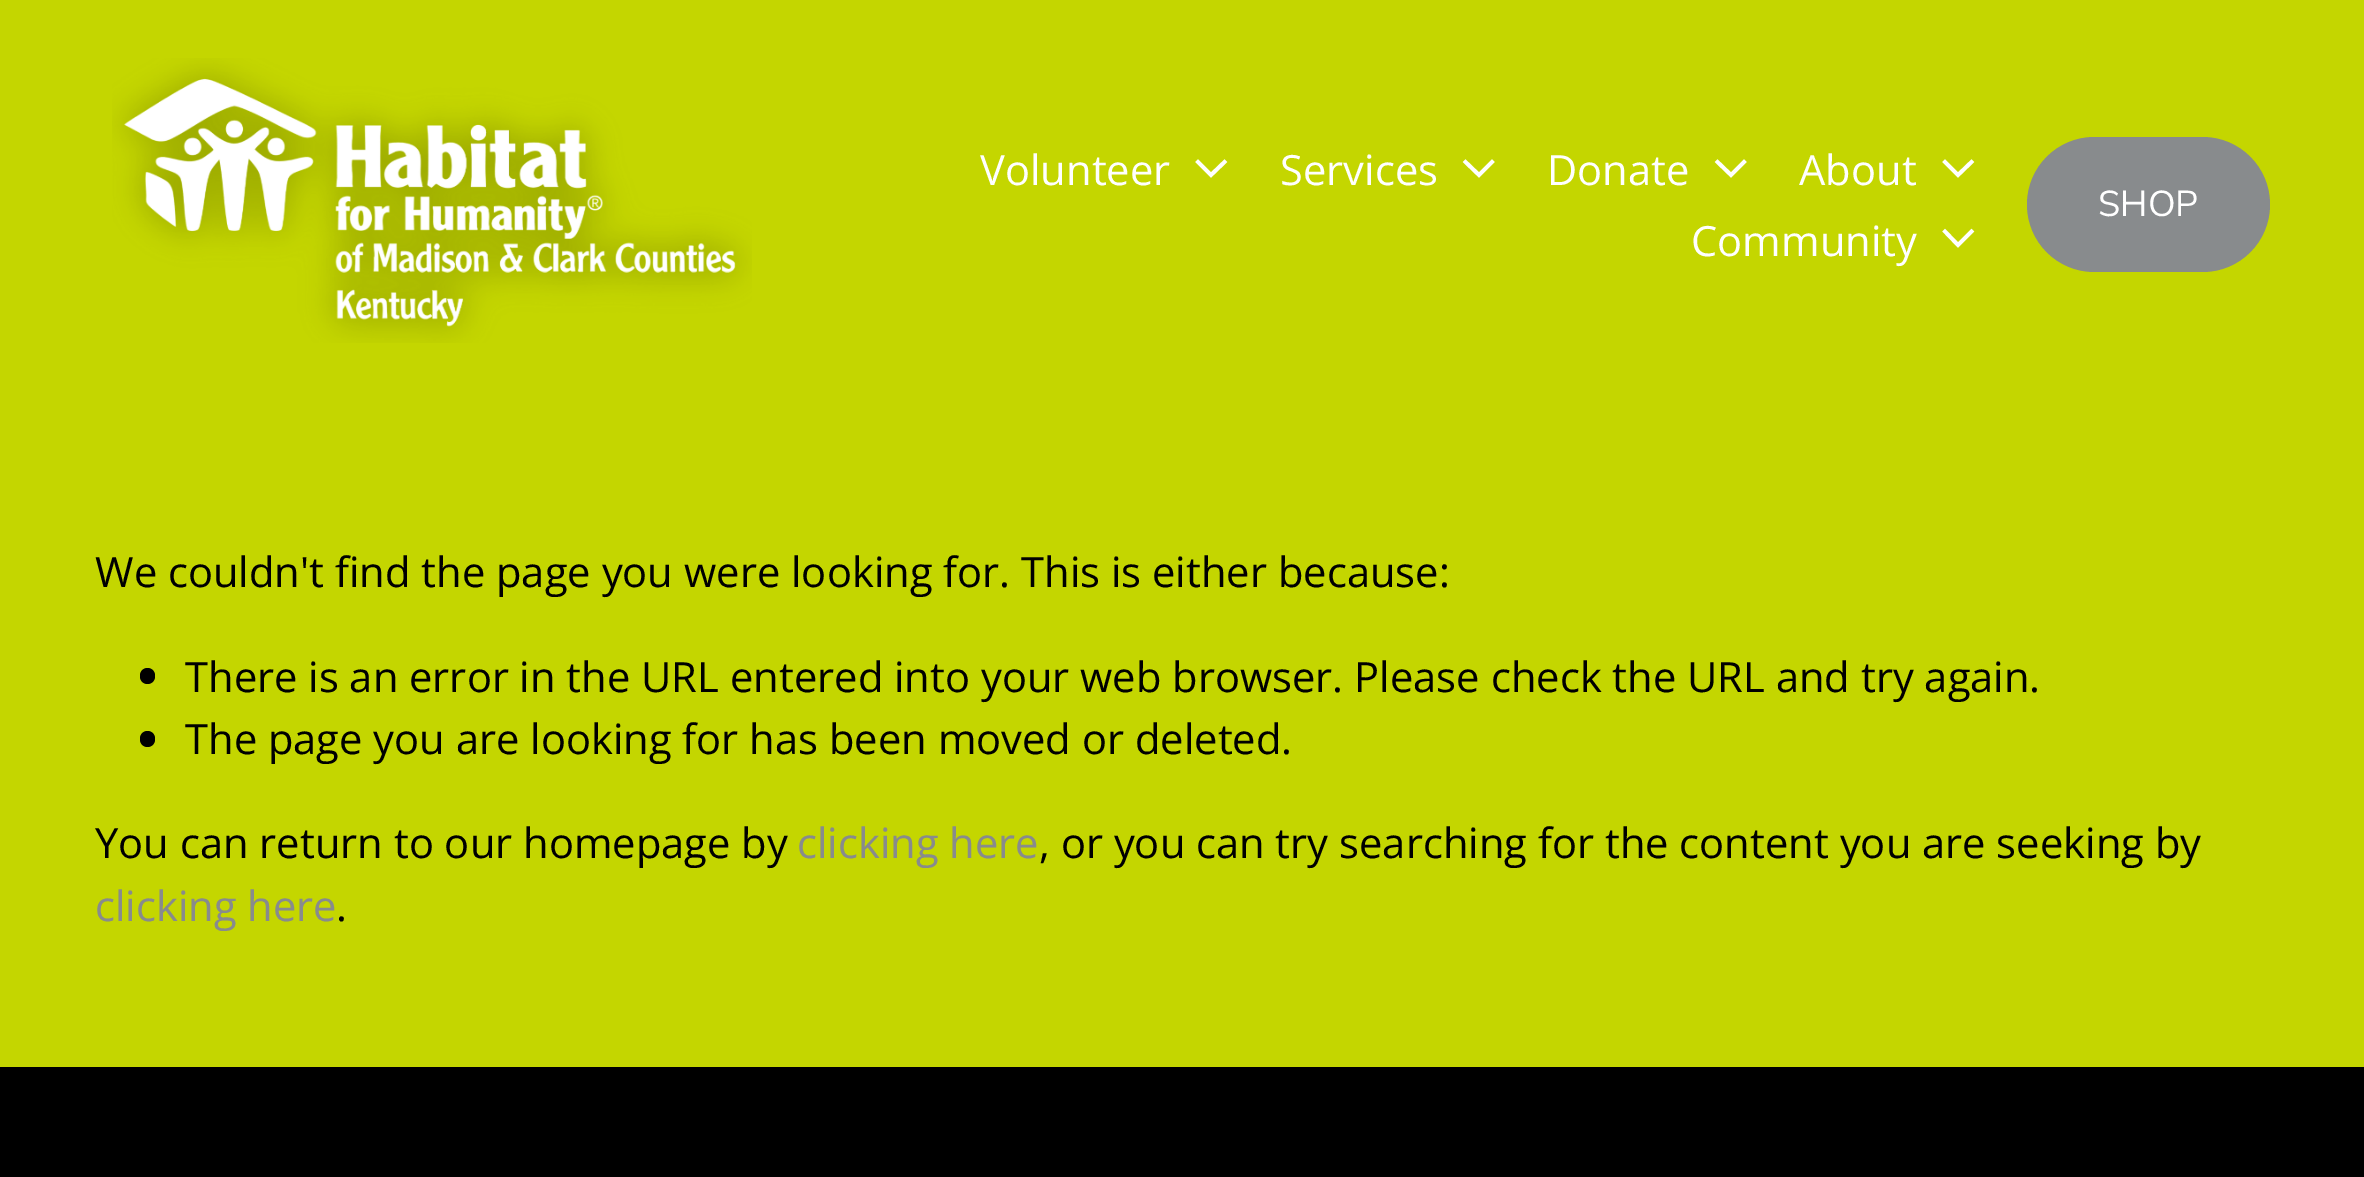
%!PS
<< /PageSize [2364 1177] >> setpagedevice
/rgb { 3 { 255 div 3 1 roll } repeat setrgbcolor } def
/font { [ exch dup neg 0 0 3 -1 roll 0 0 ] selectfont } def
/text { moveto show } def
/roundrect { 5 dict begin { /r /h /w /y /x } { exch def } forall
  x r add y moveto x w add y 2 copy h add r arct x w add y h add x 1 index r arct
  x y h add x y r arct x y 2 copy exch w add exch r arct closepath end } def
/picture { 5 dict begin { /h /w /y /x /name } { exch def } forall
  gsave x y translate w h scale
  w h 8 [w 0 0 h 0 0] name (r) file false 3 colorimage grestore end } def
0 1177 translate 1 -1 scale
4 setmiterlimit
196 214 0 rgb
0 0 2364 1177 rectfill
(img_01.rgb) 112 58 640 285 picture
255 255 255 rgb
3.8 setlinewidth
2 setlinecap
1224.5 162 moveto -13.5 13 rlineto -13 -13 rlineto stroke
1492 162 moveto -13 13 rlineto -13.5 -13 rlineto stroke
1744 162 moveto -13 13 rlineto -13.5 -13 rlineto stroke
1971.5 162 moveto -13.5 13 rlineto -13 -13 rlineto stroke
1971.5 231.5 moveto -13.5 13.5 rlineto -13 -13.5 rlineto stroke
136 139 141 rgb
2027 137 243 135 67.5 roundrect fill
0 0 0 rgb
140 668 15 16 7.5 roundrect fill
140 731 15 16 7.5 roundrect fill
0 1067 2364 110 rectfill
/OpenSans-Regular 41.7 font
255 255 255 rgb
(Volunteer) 980 185 text
(Services) 1280 185 text
(Donate) 1547 185 text
(About) 1799 185 text
(Community) 1691 256 text
/NunitoSans-ExtraLight 36 font
(SHOP) 2098 216 text
/OpenSans-Regular 41.7 font
0 0 0 rgb
(We couldn't find the page you were looking for. This is either because:) 95 587 text
(There is an error in the URL entered into your web browser. Please check the URL and try again.) 185 692 text
(The page you are looking for has been moved or deleted.) 185 754 text
(You can return to our homepage by) 95 858 text
136 139 141 rgb
(clicking here) 797 858 text
0 0 0 rgb
(, or you can try searching for the content you are seeking by) 1039 858 text
136 139 141 rgb
(clicking here) 95 921 text
0 0 0 rgb
(.) 336 921 text
showpage
